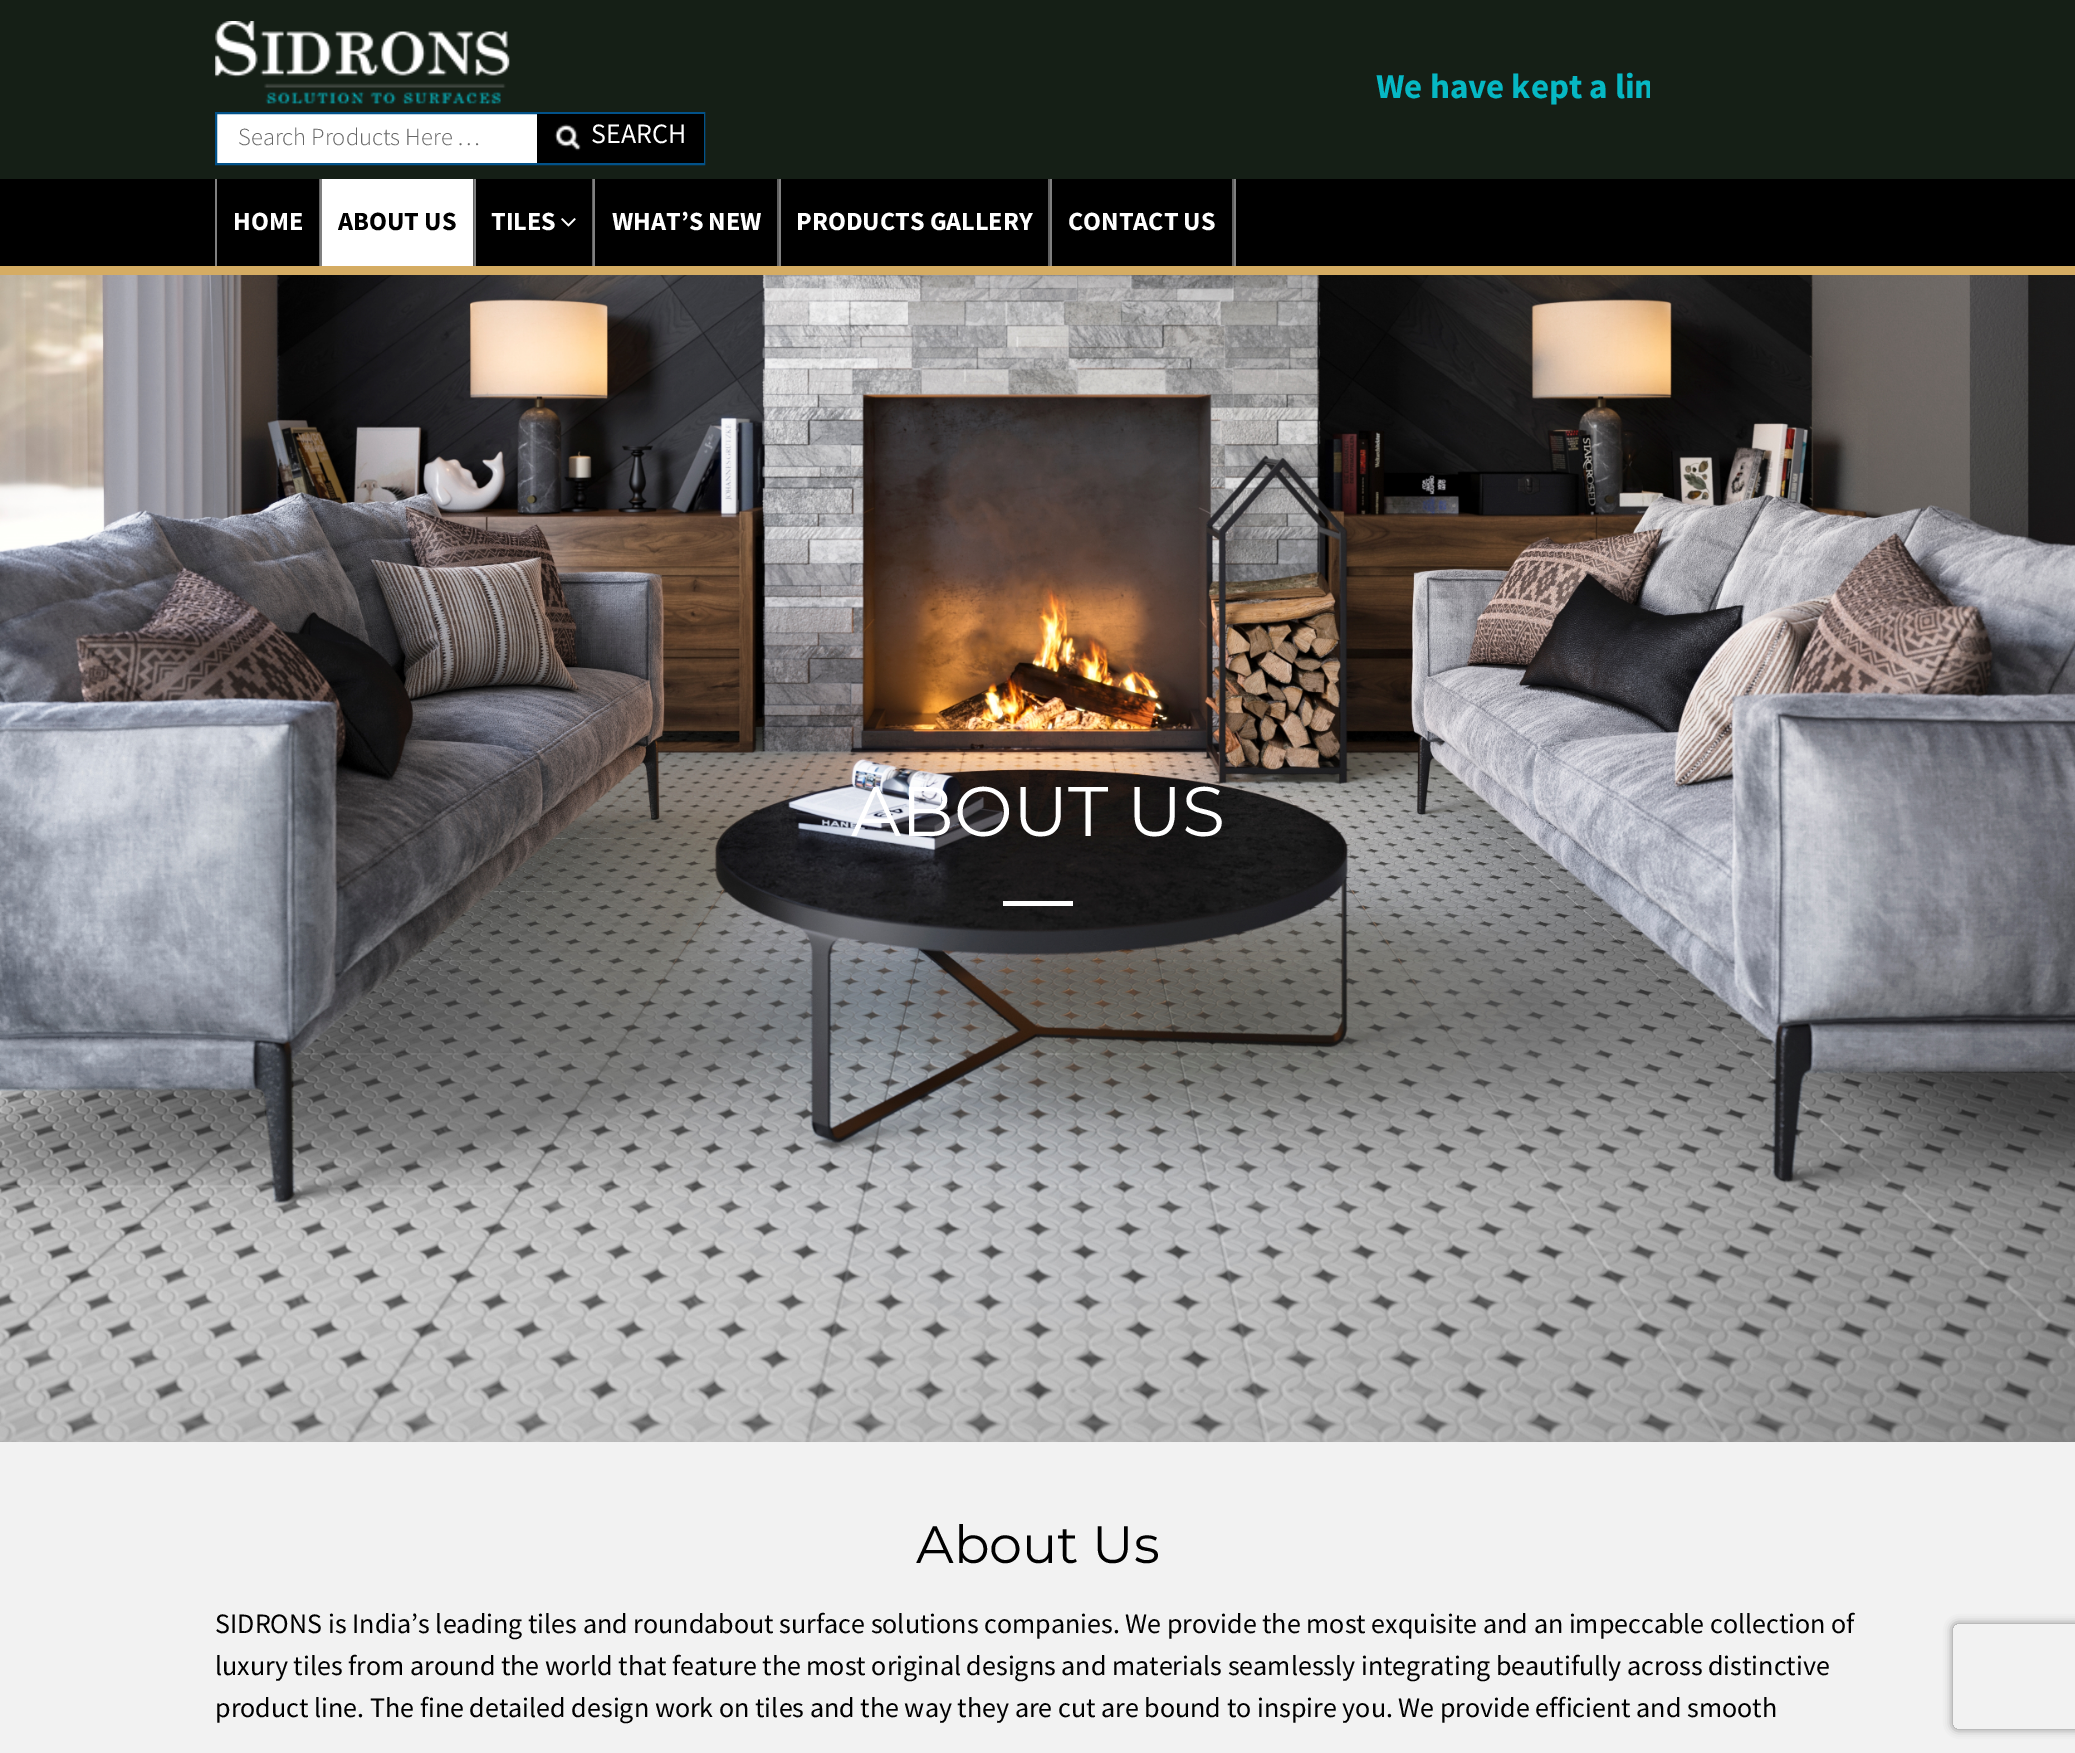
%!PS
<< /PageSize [2075 1753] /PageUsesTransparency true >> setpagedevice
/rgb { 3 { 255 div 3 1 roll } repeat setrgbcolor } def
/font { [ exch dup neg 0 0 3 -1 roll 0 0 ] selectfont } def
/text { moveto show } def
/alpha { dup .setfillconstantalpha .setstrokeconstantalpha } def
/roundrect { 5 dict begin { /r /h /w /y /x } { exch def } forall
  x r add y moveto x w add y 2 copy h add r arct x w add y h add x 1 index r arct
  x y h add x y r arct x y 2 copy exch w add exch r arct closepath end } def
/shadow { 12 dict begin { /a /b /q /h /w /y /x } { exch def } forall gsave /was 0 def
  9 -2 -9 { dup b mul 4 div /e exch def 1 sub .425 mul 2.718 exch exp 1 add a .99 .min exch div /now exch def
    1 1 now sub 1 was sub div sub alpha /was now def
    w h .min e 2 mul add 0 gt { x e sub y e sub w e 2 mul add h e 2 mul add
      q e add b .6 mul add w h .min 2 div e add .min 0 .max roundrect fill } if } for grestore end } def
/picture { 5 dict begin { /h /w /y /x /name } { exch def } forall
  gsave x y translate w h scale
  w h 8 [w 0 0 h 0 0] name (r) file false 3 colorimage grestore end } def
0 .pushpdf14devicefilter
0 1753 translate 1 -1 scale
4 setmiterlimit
242 242 242 rgb
0 0 2075 1753 rectfill
21 31 22 rgb
0 0 2075 179 rectfill
(img_01.rgb) 215 21 295 83 picture
255 255 255 rgb
217 114 320 49 rectfill
2 82 138 rgb
2 setlinewidth
216 113 488 51 rectstroke
0 0 0 rgb
537 114 167 49 rectfill
(img_02.rgb) 554 124 27 27 picture
0 179 2075 87 rectfill
213 172 99 rgb
0 266 2075 9 rectfill
128 128 128 rgb
1234 179 2 87 rectfill
96 96 96 rgb
319 179 1 87 rectfill
128 128 128 rgb
215 179 2 87 rectfill
96 96 96 rgb
473 179 1 87 rectfill
128 128 128 rgb
320 179 2 87 rectfill
255 255 255 rgb
322 179 151 87 rectfill
96 96 96 rgb
592 179 1 87 rectfill
128 128 128 rgb
474 179 2 87 rectfill
(img_03.rgb) 561 218 15 9 picture
96 96 96 rgb
777 179 2 87 rectfill
128 128 128 rgb
593 179 2 87 rectfill
96 96 96 rgb
1048 179 2 87 rectfill
128 128 128 rgb
779 179 2 87 rectfill
96 96 96 rgb
1232 179 2 87 rectfill
128 128 128 rgb
1050 179 2 87 rectfill
(img_04.rgb) 0 275 2075 1167 picture
255 255 255 rgb
1003 901 70 5 rectfill
gsave
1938 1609 moveto 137 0 rlineto 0 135 rlineto -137 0 rlineto closepath 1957 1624 moveto 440 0 rlineto 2 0 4 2 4 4 rcurveto 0 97 rlineto 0 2 -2 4 -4 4 rcurveto -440 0 rlineto -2 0 -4 -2 -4 -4 rcurveto 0 -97 rlineto 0 -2 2 -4 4 -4 rcurveto closepath eoclip newpath
128 128 128 rgb
1953 1624 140 105 4 4.5 1 shadow
grestore
gsave
828 61 822 51 rectclip
/SourceSansPro-Bold 35 font
6 184 196 rgb
(We have kept a lim) 1376 98 text
grestore
/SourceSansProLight-Light 24.5 font
102 102 102 rgb
(Search Products Here …) 238 145 text
/SourceSansPro-Regular 28 font
255 255 255 rgb
(SEARCH) 591 143 text
/SourceSansPro-Bold 26.25 font
(HOME) 233 230 text
0 0 0 rgb
(ABOUT US) 338 230 text
255 255 255 rgb
(TILES) 491 230 text
(WHAT’S NEW) 612 230 text
(PRODUCTS GALLERY) 796 230 text
(CONTACT US) 1068 230 text
/Montserrat-Regular 70 font
(ABOUT US) 851 836 text
/Montserrat-Regular 52.5 font
0 0 0 rgb
(About Us) 916 1563 text
/SourceSansPro-Regular 28 font
(SIDRONS is India’s leading tiles and roundabout surface solutions companies. We provide the most exquisite and an impeccable collection of) 215 1633 text
(luxury tiles from around the world that feature the most original designs and materials seamlessly integrating beautifully across distinctive) 215 1675 text
(product line. The fine detailed design work on tiles and the way they are cut are bound to inspire you. We provide efficient and smooth) 215 1717 text
.poppdf14devicefilter showpage
